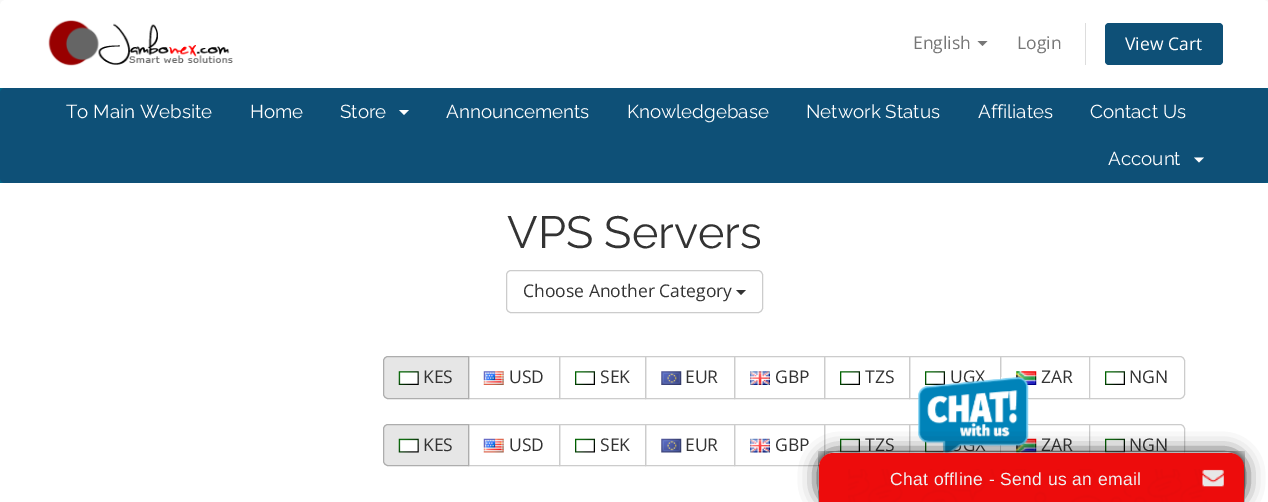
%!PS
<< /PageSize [1268 502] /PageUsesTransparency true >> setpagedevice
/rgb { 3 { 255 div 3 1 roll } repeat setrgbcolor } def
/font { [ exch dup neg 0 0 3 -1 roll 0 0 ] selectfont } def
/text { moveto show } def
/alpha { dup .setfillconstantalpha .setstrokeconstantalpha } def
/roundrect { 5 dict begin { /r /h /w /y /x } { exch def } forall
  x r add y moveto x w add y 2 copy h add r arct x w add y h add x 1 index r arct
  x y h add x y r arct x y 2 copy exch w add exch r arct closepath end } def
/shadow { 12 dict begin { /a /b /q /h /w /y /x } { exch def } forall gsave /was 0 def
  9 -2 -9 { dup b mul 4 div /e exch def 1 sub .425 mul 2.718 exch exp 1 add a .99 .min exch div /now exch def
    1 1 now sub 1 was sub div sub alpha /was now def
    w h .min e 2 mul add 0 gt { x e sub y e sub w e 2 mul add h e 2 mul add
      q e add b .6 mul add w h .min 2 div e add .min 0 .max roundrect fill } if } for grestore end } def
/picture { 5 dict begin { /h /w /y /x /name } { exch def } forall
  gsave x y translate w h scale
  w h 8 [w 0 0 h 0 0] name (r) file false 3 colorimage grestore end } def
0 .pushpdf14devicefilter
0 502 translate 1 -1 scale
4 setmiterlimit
248 248 248 rgb
0 0 1268 502 rectfill
255 255 255 rgb
6 0 moveto 1257 0 rlineto 3.5 0 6 2.5 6 6 rcurveto 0 82 rlineto -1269 0 rlineto 0 -82 rlineto 0 -3.5 2.5 -6 6 -6 rcurveto closepath fill
(img_01.rgb) 48 20 185 46 picture
119 119 119 rgb
977.5 41 moveto 10 0 rlineto -5 5 rlineto closepath fill
221 221 221 rgb
1085 23 1 42 rectfill
14 80 119 rgb
1105 23 118 42 4 roundrect fill
0 102 135 rgb
0 88 1268 95 rectfill
14 80 119 rgb
0 88 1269 95 5 roundrect fill
255 255 255 rgb
399 110 moveto 10 0 rlineto -5 5 rlineto closepath fill
1194 157.5 moveto 10 0 rlineto -5 5 rlineto closepath fill
0 183 1268 319 rectfill
204 204 204 rgb
506.5 270.5 256 42 4.5 roundrect stroke
51 51 51 rgb
736 290 moveto 10 0 rlineto -5 5 rlineto closepath fill
204 204 204 rgb
468.5 356.5 91 42 rectstroke
230 230 230 rgb
388 356.5 moveto 80.5 0 rlineto 0 42 rlineto -80.5 0 rlineto -2.5 0 -4.5 -2 -4.5 -4.5 rcurveto 0 -33 rlineto 0 -2.5 2 -4.5 4.5 -4.5 rcurveto closepath gsave fill grestore
173 173 173 rgb
stroke
(img_02.rgb) 398 371 21 14 picture
(img_03.rgb) 483 371 21 14 picture
204 204 204 rgb
559.5 356.5 86 42 rectstroke
(img_04.rgb) 575 371 20 14 picture
645.5 356.5 89 42 rectstroke
(img_05.rgb) 661 371 21 14 picture
734.5 356.5 90 42 rectstroke
(img_06.rgb) 750 371 20 14 picture
824.5 356.5 85 42 rectstroke
(img_04.rgb) 840 371 20 14 picture
909.5 356.5 91 42 rectstroke
(img_04.rgb) 925 371 20 14 picture
1000.5 356.5 89 42 rectstroke
(img_07.rgb) 1016 371 21 14 picture
255 255 255 rgb
1089.5 356.5 moveto 90.5 0 rlineto 2.5 0 4.5 2 4.5 4.5 rcurveto 0 33 rlineto 0 2.5 -2 4.5 -4.5 4.5 rcurveto -90.5 0 rlineto closepath gsave fill grestore
204 204 204 rgb
stroke
(img_04.rgb) 1105 371 20 14 picture
468.5 424.5 91 41 rectstroke
230 230 230 rgb
388 424.5 moveto 80.5 0 rlineto 0 41 rlineto -80.5 0 rlineto -2.5 0 -4.5 -2 -4.5 -4.5 rcurveto 0 -32 rlineto 0 -2.5 2 -4.5 4.5 -4.5 rcurveto closepath gsave fill grestore
173 173 173 rgb
stroke
(img_08.rgb) 398 438 21 15 picture
(img_09.rgb) 483 438 21 15 picture
204 204 204 rgb
559.5 424.5 86 41 rectstroke
(img_10.rgb) 575 438 20 15 picture
645.5 424.5 89 41 rectstroke
(img_11.rgb) 661 438 21 15 picture
734.5 424.5 90 41 rectstroke
(img_12.rgb) 750 438 20 15 picture
824.5 424.5 85 41 rectstroke
(img_10.rgb) 840 438 20 15 picture
909.5 424.5 91 41 rectstroke
(img_13.rgb) 925 441 19 12 picture
1000.5 424.5 89 41 rectstroke
(img_14.rgb) 1016 438 21 15 picture
255 255 255 rgb
1089.5 424.5 moveto 90.5 0 rlineto 2.5 0 4.5 2 4.5 4.5 rcurveto 0 32 rlineto 0 2.5 -2 4.5 -4.5 4.5 rcurveto -90.5 0 rlineto closepath gsave fill grestore
204 204 204 rgb
stroke
(img_10.rgb) 1105 438 20 15 picture
/OpenSans-Regular 17.5 font
119 119 119 rgb
(English) 913 49 text
(Login) 1017 49 text
255 255 255 rgb
(View Cart) 1125 50 text
/Raleway-Regular 18.75 font
(To Main Website) 66 118 text
(Home) 250 118 text
(Store) 340 118 text
(Announcements) 446 118 text
(Knowledgebase) 627 118 text
(Network Status) 806 118 text
(Affiliates) 978 118 text
(Contact Us) 1090 118 text
(Account) 1108 165 text
/Raleway-Regular 45 font
51 51 51 rgb
(VPS Servers) 507 248 text
/OpenSans-Regular 17.5 font
(Choose Another Category) 523 297 text
(KES) 423 383 text
(USD) 509 383 text
(SEK) 600 383 text
(EUR) 685 383 text
(GBP) 775 383 text
(TZS) 865 383 text
(UGX) 950 383 text
(ZAR) 1041 383 text
(NGN) 1129 383 text
(KES) 423 451 text
(USD) 509 451 text
(SEK) 600 451 text
(EUR) 685 451 text
(GBP) 775 451 text
(TZS) 865 451 text
(ZAR) 1041 451 text
(NGN) 1129 451 text
(img_15.rgb) 918 377 111 76 picture
17 17 17 rgb
819 453 425 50 16 9.5 1 shadow
(img_16.rgb) 818 451 427 51 picture
237 12 12 rgb
833 453 moveto 397 0 rlineto 7.5 0 14 6.5 14 14 rcurveto 0 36 rlineto -425 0 rlineto 0 -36 rlineto 0 -7.5 6.5 -14 14 -14 rcurveto closepath fill
(img_17.rgb) 848 469 359 33 picture
/LiberationSans-Regular 17.5 font
241 241 241 rgb
890 485 moveto 0.4 0 (Chat offline - Send us an email) ashow
(img_18.rgb) 1202 469 22 18 picture
.poppdf14devicefilter showpage
